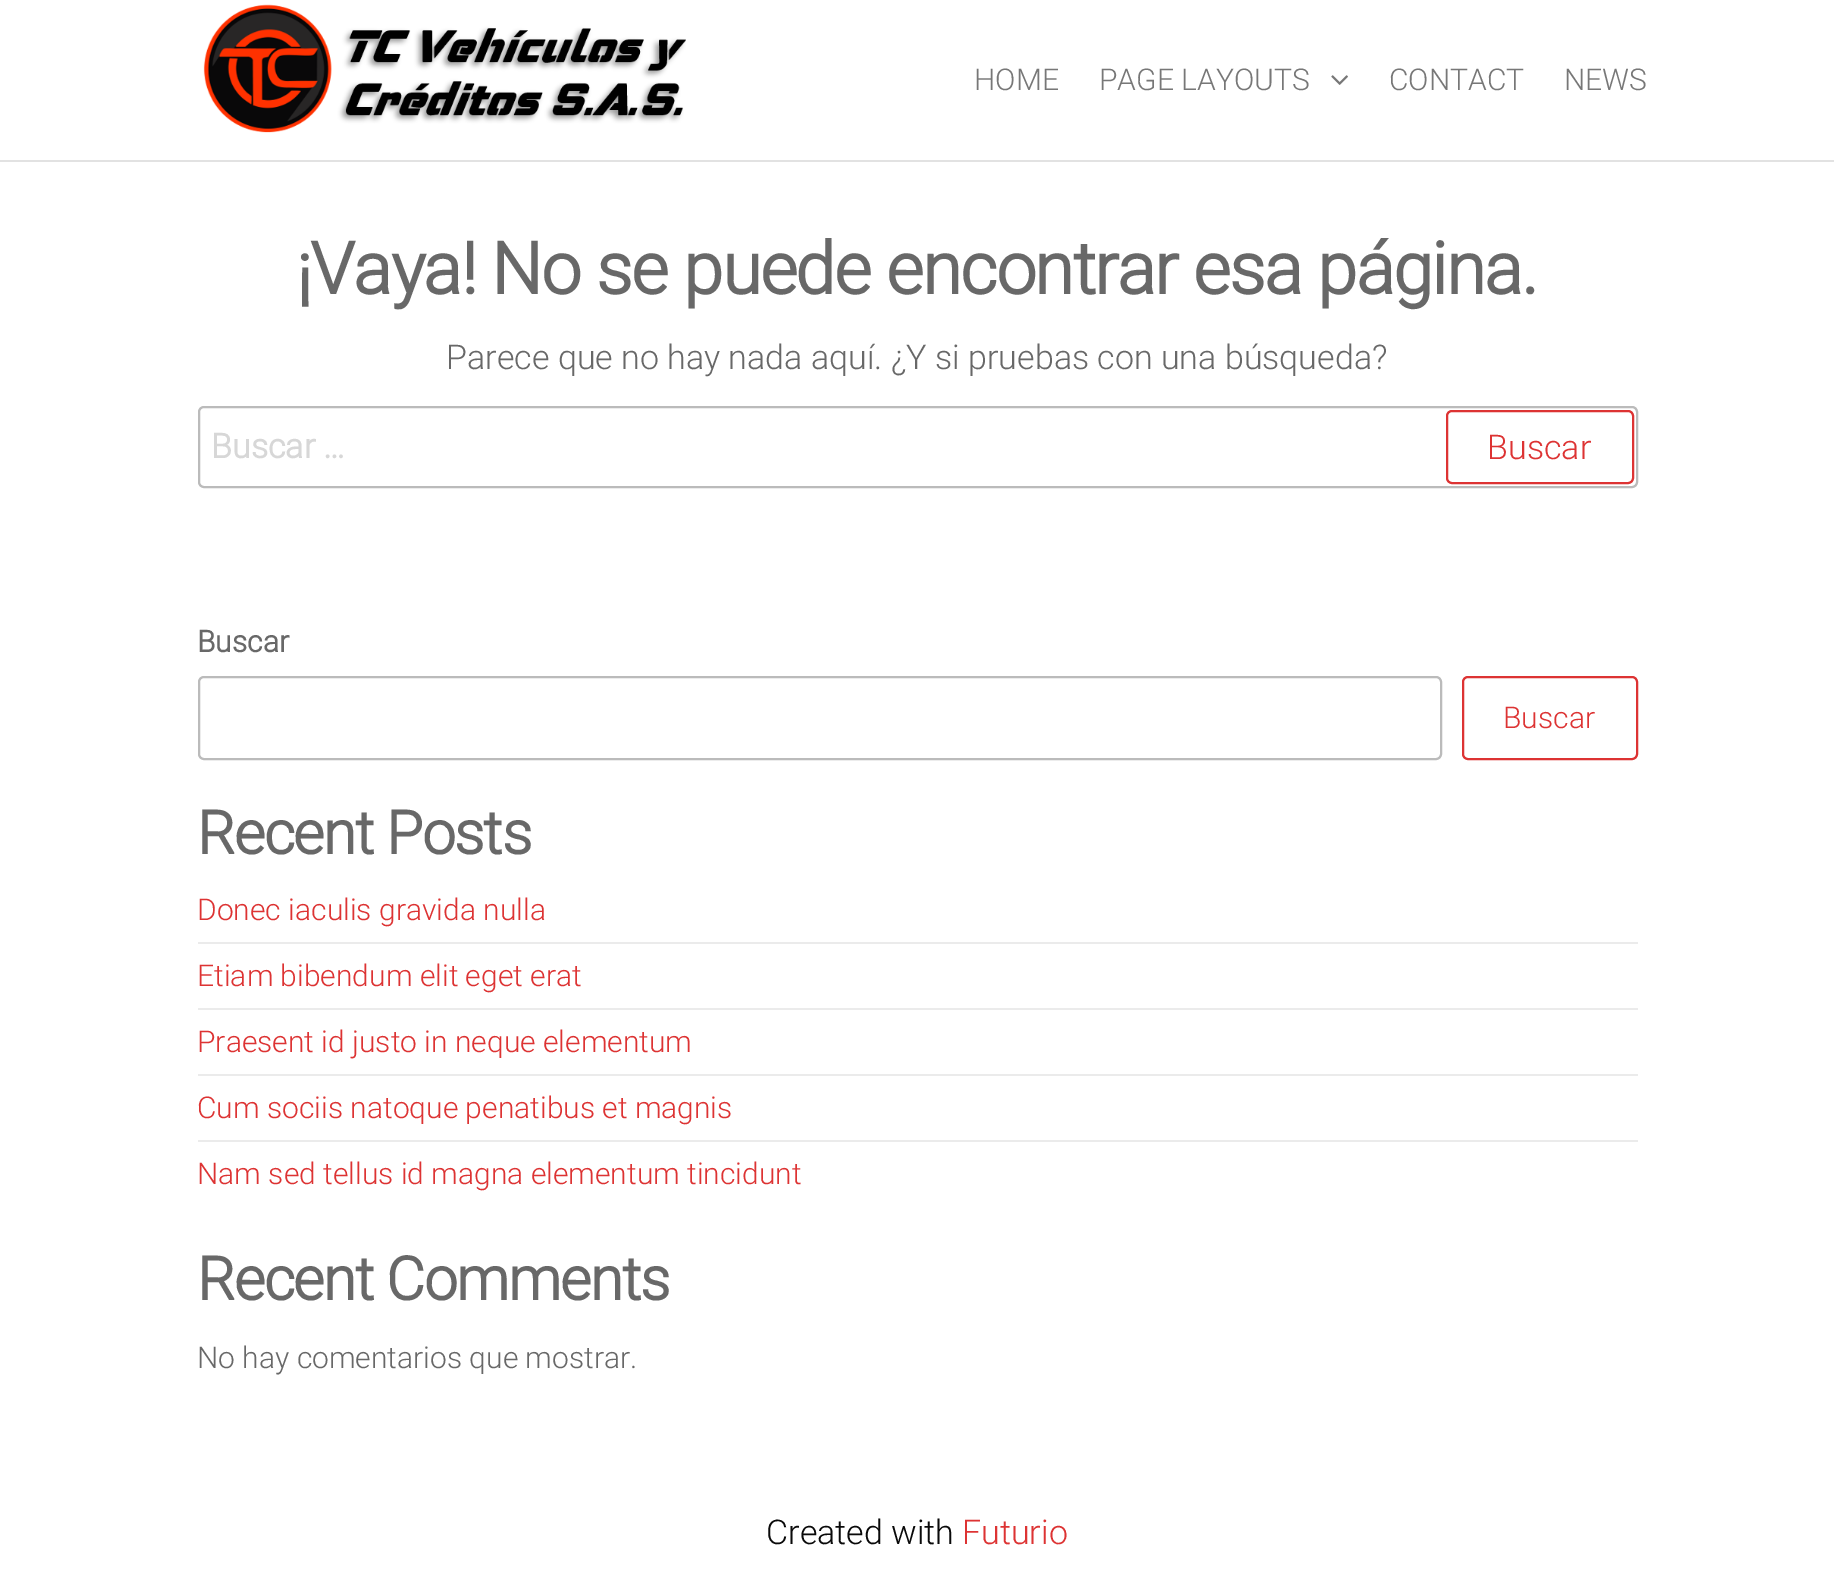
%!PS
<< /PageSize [1834 1569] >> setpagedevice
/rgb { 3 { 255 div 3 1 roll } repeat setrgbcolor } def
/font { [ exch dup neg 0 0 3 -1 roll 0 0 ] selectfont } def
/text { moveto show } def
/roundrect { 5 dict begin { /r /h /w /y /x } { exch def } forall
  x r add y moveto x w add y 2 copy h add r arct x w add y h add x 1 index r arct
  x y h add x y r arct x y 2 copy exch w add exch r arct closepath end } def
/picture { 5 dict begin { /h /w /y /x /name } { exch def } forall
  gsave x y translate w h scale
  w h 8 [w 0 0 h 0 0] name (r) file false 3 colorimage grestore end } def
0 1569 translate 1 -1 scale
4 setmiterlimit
255 255 255 rgb
0 0 1834 1569 rectfill
226 226 226 rgb
0 160 1834 2 rectfill
(img_01.rgb) 203 4 483 129 picture
(img_02.rgb) 1331 75 17 10 picture
187 187 187 rgb
2 setlinewidth
199 407 1438 80 5 roundrect stroke
221 51 51 rgb
1447 411 186 72 5 roundrect stroke
187 187 187 rgb
199 677 1242 82 5 roundrect stroke
221 51 51 rgb
1463 677 174 82 5 roundrect stroke
235 235 235 rgb
198 942 1440 2 rectfill
198 1008 1440 2 rectfill
198 1074 1440 2 rectfill
198 1140 1440 2 rectfill
/Roboto-Light 30 font
119 119 119 rgb
(HOME) 974 90 text
(PAGE LAYOUTS) 1099 90 text
(CONTACT) 1389 90 text
(NEWS) 1564 90 text
/Roboto-Bold 72 font
104 104 104 rgb
296 294 moveto -1.45 0 (¡Vaya! No se puede encontrar esa página.) ashow
/Roboto-Light 34 font
(Parece que no hay nada aquí. ¿Y si pruebas con una búsqueda?) 446 369 text
/Roboto-Bold 34 font
215 215 215 rgb
(Buscar …) 211 458 text
/Roboto-Light 34 font
221 51 51 rgb
(Buscar) 1487 459 text
/Roboto-Bold 30 font
104 104 104 rgb
(Buscar) 197 652 text
/Roboto-Light 30 font
221 51 51 rgb
(Buscar) 1503 728 text
/Roboto-Bold 60 font
104 104 104 rgb
197 854 moveto -1.25 0 (Recent Posts) ashow
/Roboto-Light 30 font
221 51 51 rgb
(Donec iaculis gravida nulla) 197 920 text
(Etiam bibendum elit eget erat) 197 986 text
(Praesent id justo in neque elementum) 197 1052 text
(Cum sociis natoque penatibus et magnis) 197 1118 text
(Nam sed tellus id magna elementum tincidunt) 197 1184 text
/Roboto-Bold 60 font
104 104 104 rgb
197 1300 moveto -1.25 0 (Recent Comments) ashow
/Roboto-Light 30 font
(No hay comentarios que mostrar.) 197 1368 text
/Roboto-Light 34 font
10 10 10 rgb
(Created with) 766 1544 text
221 51 51 rgb
(Futurio) 962 1544 text
showpage
